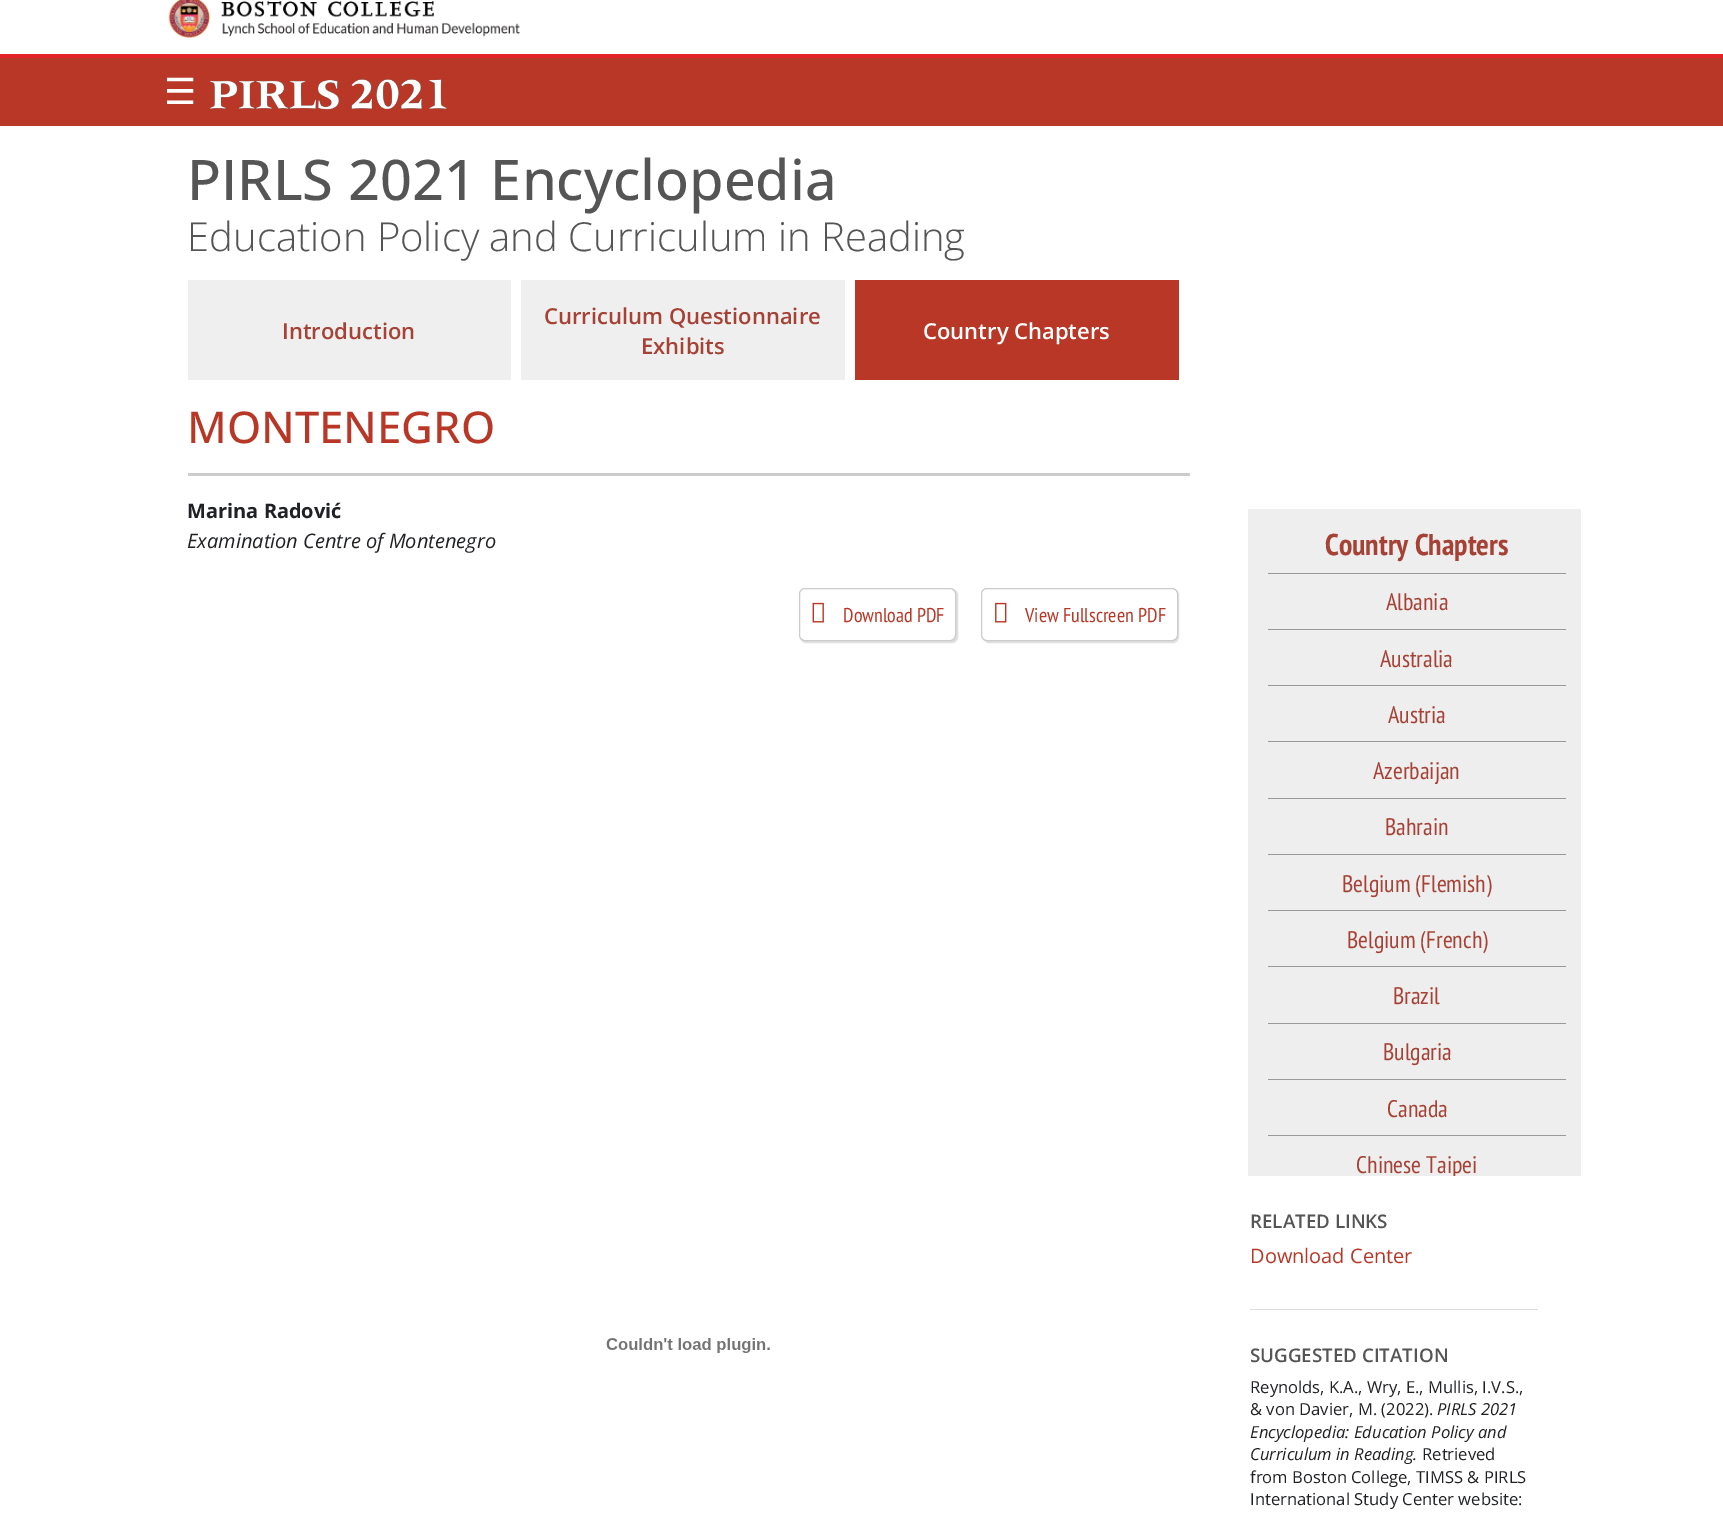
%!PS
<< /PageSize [1723 1516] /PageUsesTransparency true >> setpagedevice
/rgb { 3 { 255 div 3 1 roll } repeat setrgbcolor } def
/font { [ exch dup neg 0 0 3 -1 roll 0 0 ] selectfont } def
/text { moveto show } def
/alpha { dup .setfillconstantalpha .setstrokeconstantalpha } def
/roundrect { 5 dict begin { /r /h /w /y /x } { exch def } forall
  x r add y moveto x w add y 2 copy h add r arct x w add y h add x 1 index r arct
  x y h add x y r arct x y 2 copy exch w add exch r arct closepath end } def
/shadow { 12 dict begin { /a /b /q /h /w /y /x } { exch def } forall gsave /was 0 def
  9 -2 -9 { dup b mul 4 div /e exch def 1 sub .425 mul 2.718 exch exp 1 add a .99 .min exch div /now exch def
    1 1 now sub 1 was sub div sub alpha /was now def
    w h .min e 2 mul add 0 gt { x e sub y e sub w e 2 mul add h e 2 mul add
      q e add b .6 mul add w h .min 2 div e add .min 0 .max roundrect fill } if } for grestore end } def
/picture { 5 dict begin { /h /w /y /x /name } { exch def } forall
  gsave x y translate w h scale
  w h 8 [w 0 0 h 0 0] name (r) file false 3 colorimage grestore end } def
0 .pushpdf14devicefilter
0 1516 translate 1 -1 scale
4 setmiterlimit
255 255 255 rgb
0 0 1723 1516 rectfill
226 35 38 rgb
0 54 1723 4 rectfill
(img_01.rgb) 168 0 352 38 picture
184 55 38 rgb
0 58 1723 68 rectfill
(img_02.rgb) 210 79 237 31 picture
239 239 239 rgb
188 280 323 100 rectfill
521 280 324 100 rectfill
184 55 38 rgb
855 280 324 100 rectfill
204 204 204 rgb
188 473 1002 3 rectfill
gsave
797 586 moveto 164 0 rlineto 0 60 rlineto -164 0 rlineto closepath 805 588 moveto 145 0 rlineto 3.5 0 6 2.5 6 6 rcurveto 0 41 rlineto 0 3.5 -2.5 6 -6 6 rcurveto -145 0 rlineto -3.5 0 -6 -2.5 -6 -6 rcurveto 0 -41 rlineto 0 -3.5 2.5 -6 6 -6 rcurveto closepath eoclip newpath
221 221 221 rgb
800 589 158 54 6 0.5 1 shadow
grestore
799.5 588.5 156 52 5.5 roundrect stroke
(img_03.rgb) 812 602 12 21 picture
gsave
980 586 moveto 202 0 rlineto 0 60 rlineto -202 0 rlineto closepath 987 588 moveto 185 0 rlineto 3.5 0 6 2.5 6 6 rcurveto 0 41 rlineto 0 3.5 -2.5 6 -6 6 rcurveto -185 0 rlineto -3.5 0 -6 -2.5 -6 -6 rcurveto 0 -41 rlineto 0 -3.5 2.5 -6 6 -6 rcurveto closepath eoclip newpath
221 221 221 rgb
983 589 196 54 6 0.5 1 shadow
grestore
981.5 588.5 196 52 5.5 roundrect stroke
(img_04.rgb) 995 602 12 21 picture
(img_05.rgb) 606 1338 164 15 picture
238 238 238 rgb
1248 509 333 667 rectfill
153 153 153 rgb
1268 573 298 1 rectfill
1268 629 298 1 rectfill
1268 685 298 1 rectfill
1268 741 298 1 rectfill
1268 798 298 1 rectfill
1268 854 298 1 rectfill
1268 910 298 1 rectfill
1268 966 298 1 rectfill
1268 1023 298 1 rectfill
1268 1079 298 1 rectfill
1268 1135 298 1 rectfill
221 221 221 rgb
1250 1309 288 1 rectfill
/DejaVuSans-Regular 36 font
255 255 255 rgb
(☰) 164 104 text
/OpenSans-Medium 56 font
85 85 85 rgb
(PIRLS 2021 Encyclopedia) 187 200 text
/OpenSans-Light 40 font
(Education Policy and Curriculum in Reading) 187 251 text
/OpenSans-SemiBold 22 font
166 66 53 rgb
(Introduction) 282 339 text
(Curriculum Questionnaire) 544 324 text
(Exhibits) 641 354 text
255 255 255 rgb
(Country Chapters) 923 339 text
/OpenSans-Medium 43.75 font
184 55 38 rgb
(MONTENEGRO) 187 443 text
/OpenSans-Bold 20 font
32 33 36 rgb
(Marina Radović) 187 518 text
/OpenSans-Italic 20 font
(Examination Centre of Montenegro) 187 548 text
/PTSansNarrow-Regular 20 font
184 55 38 rgb
(Download PDF) 843 622 text
(View Fullscreen PDF) 1025 622 text
/PTSansNarrow-Bold 30 font
166 66 53 rgb
(Country Chapters) 1325 555 text
/PTSansNarrow-Regular 24 font
(Albania) 1386 610 text
(Australia) 1380 667 text
(Austria) 1388 723 text
(Azerbaijan) 1373 779 text
(Bahrain) 1385 835 text
(Belgium \(Flemish\)) 1342 892 text
(Belgium \(French\)) 1347 948 text
(Brazil) 1393 1004 text
(Bulgaria) 1383 1060 text
(Canada) 1387 1117 text
gsave
1248 509 333 667 rectclip
(Chinese Taipei) 1356 1173 text
grestore
/OpenSans-SemiBold 18.75 font
85 85 85 rgb
(RELATED LINKS) 1250 1228 text
/OpenSans-Regular 20 font
184 55 38 rgb
(Download Center) 1250 1263 text
/OpenSans-SemiBold 18.75 font
85 85 85 rgb
(SUGGESTED CITATION) 1250 1362 text
/OpenSans-Regular 16.6 font
32 33 36 rgb
(Reynolds, K.A., Wry, E., Mullis, I.V.S.,) 1250 1393 text
(& von Davier, M. \(2022\).) 1250 1415 text
/OpenSans-Italic 16.6 font
(PIRLS 2021) 1437 1415 text
(Encyclopedia: Education Policy and) 1250 1438 text
(Curriculum in Reading.) 1250 1460 text
/OpenSans-Regular 16.6 font
(Retrieved) 1422 1460 text
(from Boston College, TIMSS & PIRLS) 1250 1483 text
(International Study Center website:) 1250 1505 text
.poppdf14devicefilter showpage
